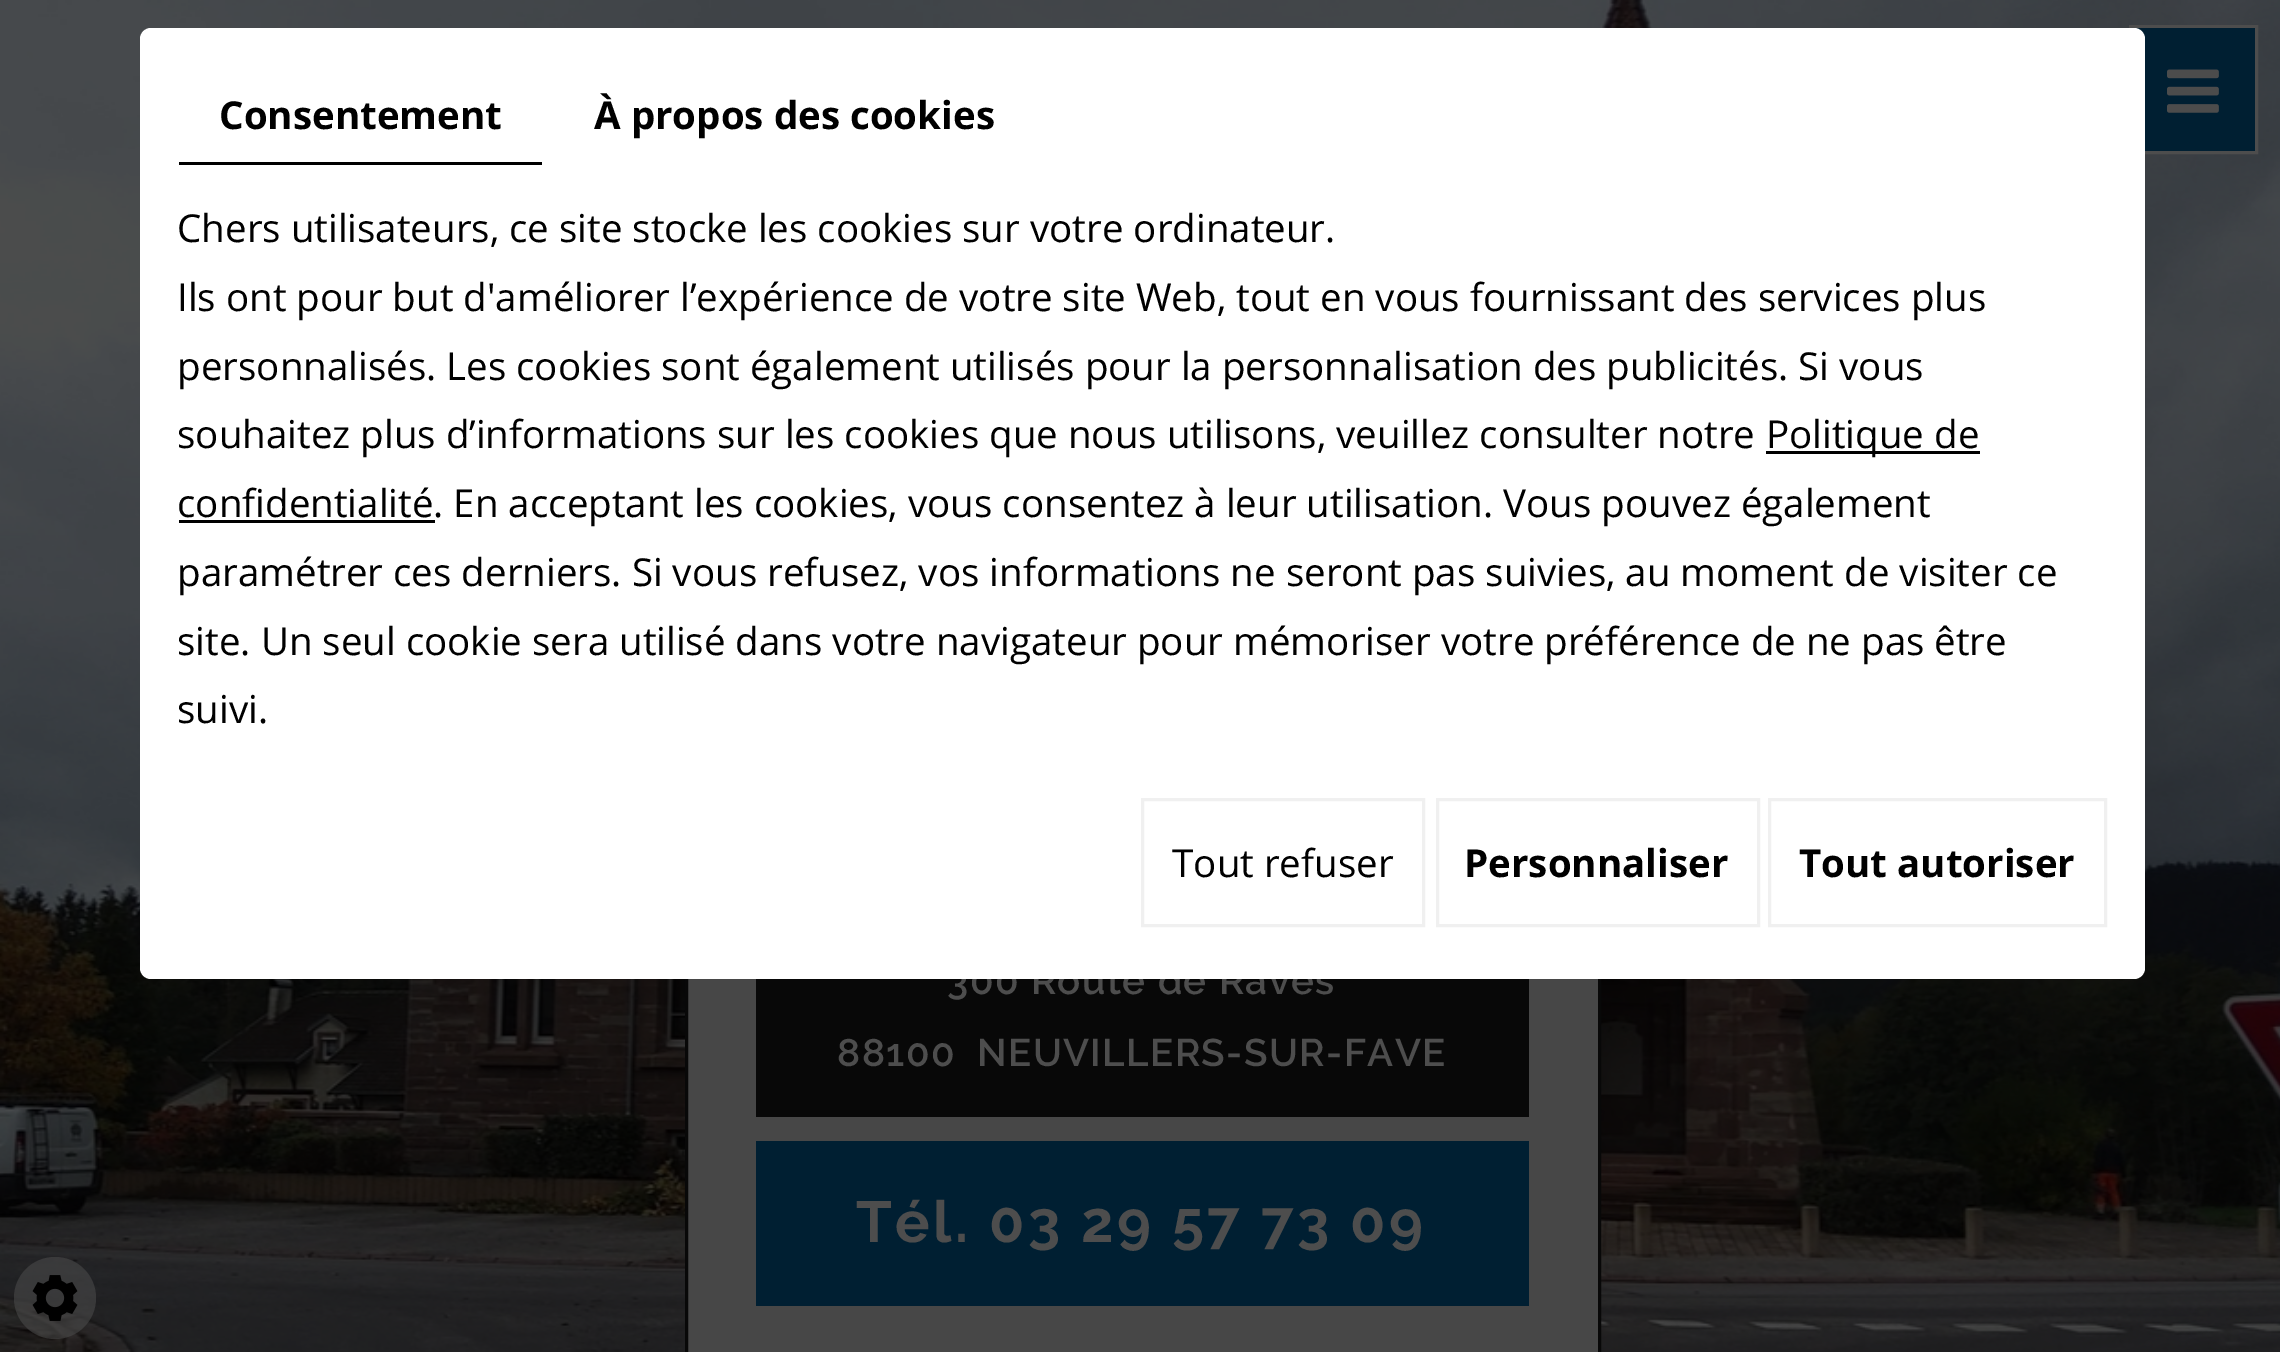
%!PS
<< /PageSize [2280 1352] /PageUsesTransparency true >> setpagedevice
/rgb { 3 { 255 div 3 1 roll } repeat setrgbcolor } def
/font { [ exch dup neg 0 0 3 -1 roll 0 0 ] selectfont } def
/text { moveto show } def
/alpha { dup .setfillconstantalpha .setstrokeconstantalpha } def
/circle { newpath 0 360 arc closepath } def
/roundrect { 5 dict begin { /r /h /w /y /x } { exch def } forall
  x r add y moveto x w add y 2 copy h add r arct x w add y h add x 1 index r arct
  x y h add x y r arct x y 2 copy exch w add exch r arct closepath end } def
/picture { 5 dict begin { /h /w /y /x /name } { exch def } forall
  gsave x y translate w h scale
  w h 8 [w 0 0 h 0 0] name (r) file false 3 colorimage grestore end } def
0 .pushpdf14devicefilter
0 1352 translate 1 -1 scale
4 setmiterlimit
255 255 255 rgb
0 0 2280 1352 rectfill
(img_02.rgb) 0 0 2280 1352 picture
77 77 77 rgb
3 setlinewidth
2130.5 26.5 126 126 rectstroke
0 31 50 rgb
2134 28 121 123 rectfill
(img_01.rgb) 2167 69 52 44 picture
71 71 71 rgb
688 979 910 373 rectfill
8 8 8 rgb
686.5 276.5 913 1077 rectstroke
756 979 773 138 rectfill
0 31 50 rgb
756 1141 773 165 rectfill
0.54 alpha
77 77 77 rgb
55 1298 41 circle fill
1 alpha
(img_03.rgb) 32 1275 46 46 picture
/Raleway-SemiBold 38.5 font
947 994 moveto 1.4 0 (300 Route de Raves) ashow
255 255 255 rgb
140 28 2005 951 11 roundrect fill
240 240 240 rgb
1769.5 799.5 336 126 rectstroke
/OpenSans-Bold 38.5 font
0 0 0 rgb
(Tout autoriser) 1799 877 text
240 240 240 rgb
1437.5 799.5 321 126 rectstroke
0 0 0 rgb
(Personnaliser) 1464 877 text
240 240 240 rgb
1142.5 799.5 281 126 rectstroke
/OpenSans-Regular 38.5 font
0 0 0 rgb
(Tout refuser) 1172 877 text
(suivi.) 177 723 text
(site. Un seul cookie sera utilisé dans votre navigateur pour mémoriser votre préférence de ne pas être) 177 655 text
(paramétrer ces derniers. Si vous refusez, vos informations ne seront pas suivies, au moment de visiter ce) 177 586 text
179 520 256 3 rectfill
(confidentialité. En acceptant les cookies, vous consentez à leur utilisation. Vous pouvez également) 177 517 text
1766 451 214 3 rectfill
(Politique de) 1766 448 text
(souhaitez plus d’informations sur les cookies que nous utilisons, veuillez consulter notre) 177 448 text
(personnalisés. Les cookies sont également utilisés pour la personnalisation des publicités. Si vous) 177 380 text
(Ils ont pour but d'améliorer l’expérience de votre site Web, tout en vous fournissant des services plus) 177 311 text
(Chers utilisateurs, ce site stocke les cookies sur votre ordinateur.) 177 242 text
/OpenSans-Bold 38.5 font
(À propos des cookies) 594 129 text
(Consentement) 219 129 text
179 162 363 3 rectfill
/Raleway-SemiBold 38.5 font
77 77 77 rgb
837 1066 moveto 1.4 0 (88100) ashow
977 1066 moveto 1.4 0 (NEUVILLERS-SUR-FAVE) ashow
/Raleway-Bold 57.75 font
856 1242 moveto 3.5 0 (Tél. 03 29 57 73 09) ashow
.poppdf14devicefilter showpage
